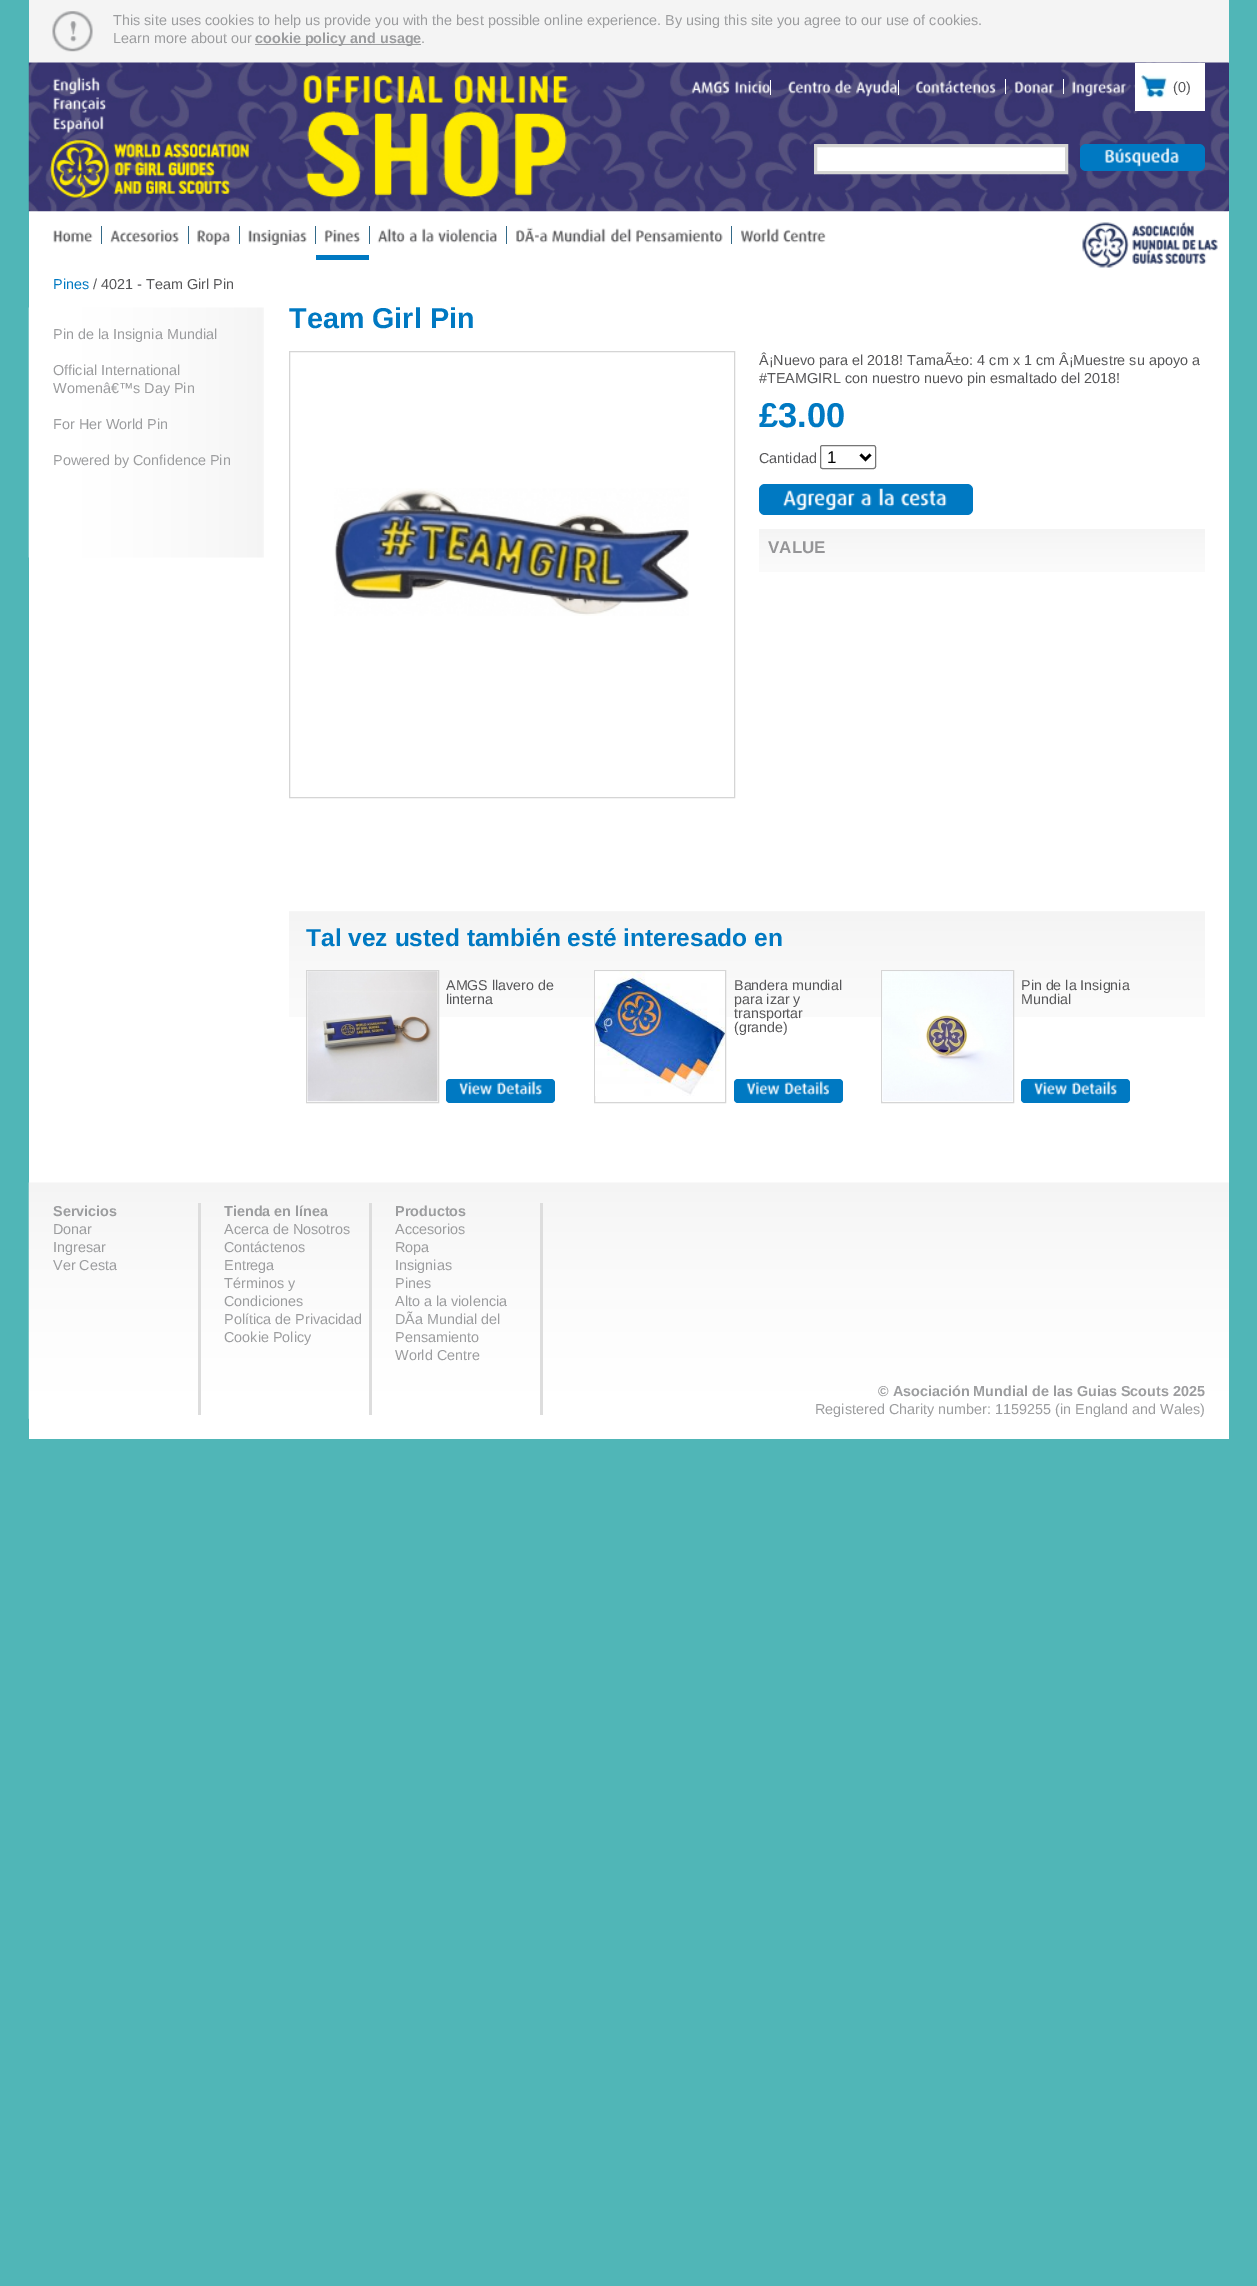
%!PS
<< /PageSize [1257 2286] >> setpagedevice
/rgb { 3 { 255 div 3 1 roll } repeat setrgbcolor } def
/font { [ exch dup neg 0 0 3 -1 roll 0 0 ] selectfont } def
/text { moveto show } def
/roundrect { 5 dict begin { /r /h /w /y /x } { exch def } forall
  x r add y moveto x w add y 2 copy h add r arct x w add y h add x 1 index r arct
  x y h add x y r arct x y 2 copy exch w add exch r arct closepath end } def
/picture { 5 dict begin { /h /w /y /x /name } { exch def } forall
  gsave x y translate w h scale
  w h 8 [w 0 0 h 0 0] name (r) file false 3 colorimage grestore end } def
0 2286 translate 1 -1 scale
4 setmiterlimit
80 182 183 rgb
0 0 1257 2286 rectfill
255 255 255 rgb
29 63 1200 1376 rectfill
244 244 244 rgb
29 0 1200 63 rectfill
(img_01.rgb) 52 11 41 41 picture
156 157 159 rgb
255 44 166 1 rectfill
(img_02.rgb) 28 62 1201 150 picture
(img_03.rgb) 53 77 47 17 picture
(img_04.rgb) 53 97 54 16 picture
(img_05.rgb) 53 116 51 17 picture
255 255 255 rgb
770 80 1 15 rectfill
(img_06.rgb) 691 81 39 13 picture
(img_07.rgb) 735 81 35 13 picture
898 80 1 15 rectfill
(img_08.rgb) 788 81 43 13 picture
(img_09.rgb) 834 79 18 15 picture
(img_10.rgb) 856 79 42 18 picture
1005 79 1 15 rectfill
(img_11.rgb) 916 80 80 14 picture
1063 79 1 15 rectfill
(img_12.rgb) 1014 81 40 13 picture
(img_13.rgb) 1072 81 55 16 picture
1135 63 70 48 rectfill
(img_14.rgb) 1141 75 26 23 picture
815.5 145.5 moveto 251 0 rlineto 0 27 rlineto -251 0 rlineto closepath gsave fill grestore
213 213 211 rgb
3 setlinewidth
stroke
0 121 194 rgb
1080 144 125 27 6 roundrect fill
(img_15.rgb) 1104 147 75 20 picture
(img_16.rgb) 53 230 40 13 picture
51 106 137 rgb
101 226 1 18 rectfill
(img_17.rgb) 110 229 69 14 picture
188 226 1 18 rectfill
(img_18.rgb) 197 229 34 16 picture
239 226 1 18 rectfill
(img_19.rgb) 248 229 59 16 picture
315 226 1 18 rectfill
0 121 194 rgb
316 255 53 5 rectfill
(img_20.rgb) 324 229 37 14 picture
51 106 137 rgb
369 226 1 18 rectfill
(img_21.rgb) 377 228 28 15 picture
(img_22.rgb) 409 232 9 11 picture
(img_23.rgb) 422 228 12 15 picture
(img_24.rgb) 437 228 60 15 picture
506 226 1 18 rectfill
(img_25.rgb) 516 227 32 16 picture
(img_26.rgb) 552 228 54 15 picture
(img_27.rgb) 611 228 21 15 picture
(img_28.rgb) 636 229 87 14 picture
731 226 1 18 rectfill
(img_29.rgb) 740 228 39 15 picture
(img_30.rgb) 783 229 43 14 picture
(img_31.rgb) 1082 222 136 46 picture
(img_32.rgb) 28 307 236 251 picture
213 213 213 rgb
1 setlinewidth
289.5 351.5 445 446 rectstroke
(img_33.rgb) 334 488 355 128 picture
118 118 118 rgb
820.5 445.5 55 23 2 roundrect stroke
0 0 0 rgb
2.5 setlinewidth
860.5 454.5 moveto 5 5 rlineto 5 -5 rlineto stroke
0 121 194 rgb
759 484 214 31 6 roundrect fill
(img_34.rgb) 783 490 73 20 picture
(img_35.rgb) 861 493 11 14 picture
(img_36.rgb) 878 488 16 19 picture
(img_37.rgb) 901 490 46 17 picture
(img_38.rgb) 759 529 446 43 picture
(img_39.rgb) 289 911 916 106 picture
213 213 213 rgb
1 setlinewidth
306.5 970.5 132 132 rectstroke
(img_40.rgb) 307 971 131 131 picture
0 121 194 rgb
446 1079 109 24 4 roundrect fill
(img_41.rgb) 458 1082 35 14 picture
(img_42.rgb) 497 1081 45 15 picture
213 213 213 rgb
594.5 970.5 131 132 rectstroke
(img_43.rgb) 595 971 130 125 picture
0 121 194 rgb
734 1079 109 24 4 roundrect fill
(img_44.rgb) 746 1082 34 14 picture
(img_45.rgb) 784 1081 45 15 picture
213 213 213 rgb
881.5 970.5 132 132 rectstroke
(img_46.rgb) 882 971 131 130 picture
0 121 194 rgb
1021 1079 109 24 4 roundrect fill
(img_41.rgb) 1033 1082 35 14 picture
(img_42.rgb) 1072 1081 45 15 picture
(img_47.rgb) 28 1182 1201 237 picture
221 221 221 rgb
198 1203 3 212 rectfill
369 1203 3 212 rectfill
540 1203 3 212 rectfill
/LiberationSans-Regular 14.4 font
156 157 159 rgb
(This site uses cookies to help us provide you with the best possible online experience. By using this site you agree to our use of cookies.) 113 25 text
(Learn more about our) 113 43 text
/LiberationSans-Bold 14.4 font
(cookie policy and usage) 255 43 text
/LiberationSans-Regular 14.4 font
(.) 421 43 text
87 87 89 rgb
(\(0\)) 1173 92 text
0 121 194 rgb
(Pines) 53 289 text
87 87 89 rgb
(/ 4021 - Team Girl Pin) 93 289 text
156 157 159 rgb
(Pin de la Insignia Mundial) 53 339 text
(Official International) 53 375 text
(Womenâ€™s Day Pin) 53 393 text
(For Her World Pin) 53 429 text
(Powered by Confidence Pin) 53 465 text
/LiberationSans-Bold 28.75 font
0 121 194 rgb
(Team Girl Pin) 289 328 text
/LiberationSans-Regular 14.4 font
87 87 89 rgb
(Â¡Nuevo para el 2018! TamaÃ±o: 4 cm x 1 cm Â¡Muestre su apoyo a) 759 365 text
(#TEAMGIRL con nuestro nuevo pin esmaltado del 2018!) 759 383 text
/LiberationSans-Bold 34.5 font
0 121 194 rgb
(£3.00) 759 427 text
/LiberationSans-Regular 14.4 font
87 87 89 rgb
(Cantidad) 759 463 text
/LiberationSans-Regular 17 font
0 0 0 rgb
(1) 827 463 text
/LiberationSans-Bold 17 font
149 149 151 rgb
(VALUE) 768 553 text
/LiberationSans-Bold 24.5 font
0 121 194 rgb
(Tal vez usted también esté interesado en) 306 946 text
/LiberationSans-Regular 14.25 font
87 87 89 rgb
(AMGS llavero de) 446 990 text
(linterna) 446 1004 text
(Bandera mundial) 734 990 text
(para izar y) 734 1004 text
(transportar) 734 1018 text
(\(grande\)) 734 1032 text
(Pin de la Insignia) 1021 990 text
(Mundial) 1021 1004 text
/LiberationSans-Bold 14.4 font
156 157 159 rgb
(Servicios) 53 1216 text
/LiberationSans-Regular 14.4 font
(Donar) 53 1234 text
(Ingresar) 53 1252 text
(Ver Cesta) 53 1270 text
/LiberationSans-Bold 14.4 font
(Tienda en línea) 224 1216 text
/LiberationSans-Regular 14.4 font
(Acerca de Nosotros) 224 1234 text
(Contáctenos) 224 1252 text
(Entrega) 224 1270 text
(Términos y) 224 1288 text
(Condiciones) 224 1306 text
(Política de Privacidad) 224 1324 text
(Cookie Policy) 224 1342 text
/LiberationSans-Bold 14.4 font
(Productos) 395 1216 text
/LiberationSans-Regular 14.4 font
(Accesorios) 395 1234 text
(Ropa) 395 1252 text
(Insignias) 395 1270 text
(Pines) 395 1288 text
(Alto a la violencia) 395 1306 text
(DÃa Mundial del) 395 1324 text
(Pensamiento) 395 1342 text
(World Centre) 395 1360 text
/LiberationSans-Bold 14.4 font
(© Asociación Mundial de las Guias Scouts 2025) 878 1396 text
/LiberationSans-Regular 14.4 font
(Registered Charity number: 1159255 \(in England and Wales\)) 815 1414 text
showpage
